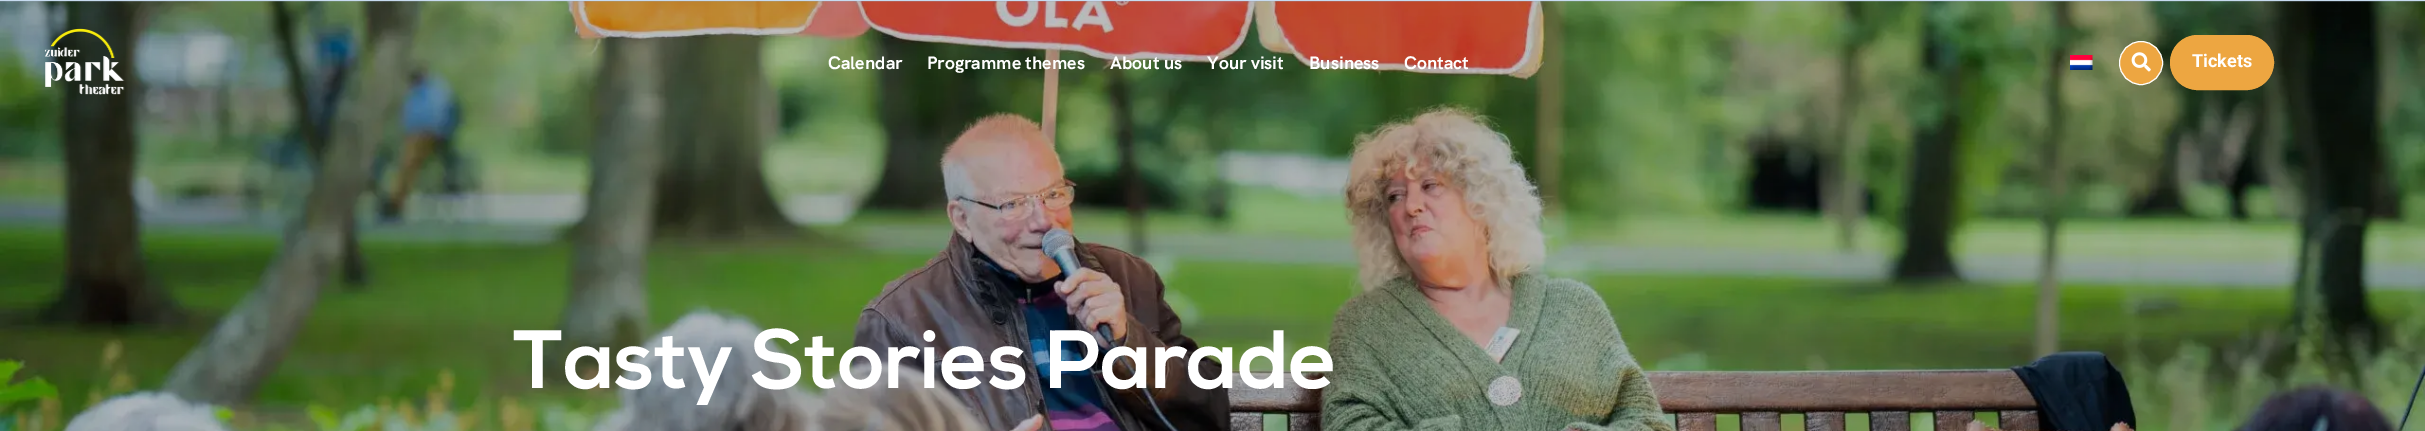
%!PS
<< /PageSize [2425 431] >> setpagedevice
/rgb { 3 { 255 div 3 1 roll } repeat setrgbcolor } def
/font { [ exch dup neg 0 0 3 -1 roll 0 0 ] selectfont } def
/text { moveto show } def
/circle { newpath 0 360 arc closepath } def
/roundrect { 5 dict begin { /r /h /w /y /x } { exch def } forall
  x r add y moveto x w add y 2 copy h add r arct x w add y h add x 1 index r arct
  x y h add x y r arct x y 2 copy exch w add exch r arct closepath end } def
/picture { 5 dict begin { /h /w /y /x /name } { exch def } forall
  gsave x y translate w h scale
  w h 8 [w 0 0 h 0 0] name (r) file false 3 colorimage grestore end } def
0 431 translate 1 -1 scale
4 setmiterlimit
199 219 240 rgb
0 0 2425 431 rectfill
(img_04.rgb) 0 1 2425 430 picture
(img_01.rgb) 44 28 81 67 picture
(img_02.rgb) 2070 55 23 15 picture
237 166 65 rgb
2141 63 21.5 circle gsave fill grestore
255 255 255 rgb
stroke
(img_03.rgb) 2131 52 20 20 picture
237 166 65 rgb
2170.5 35.5 103 54 27 roundrect gsave fill grestore
stroke
/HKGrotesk-Bold 18.1 font
255 255 255 rgb
(Calendar) 828 69 text
(Programme themes) 927 69 text
(About us) 1110 69 text
(Your visit) 1207 69 text
(Business) 1309 69 text
(Contact) 1404 69 text
/Roboto-Bold 18.1 font
(Tickets) 2192 67 text
/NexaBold-Bold 82.5 font
(Tasty Stories Parade) 513 388 text
showpage
